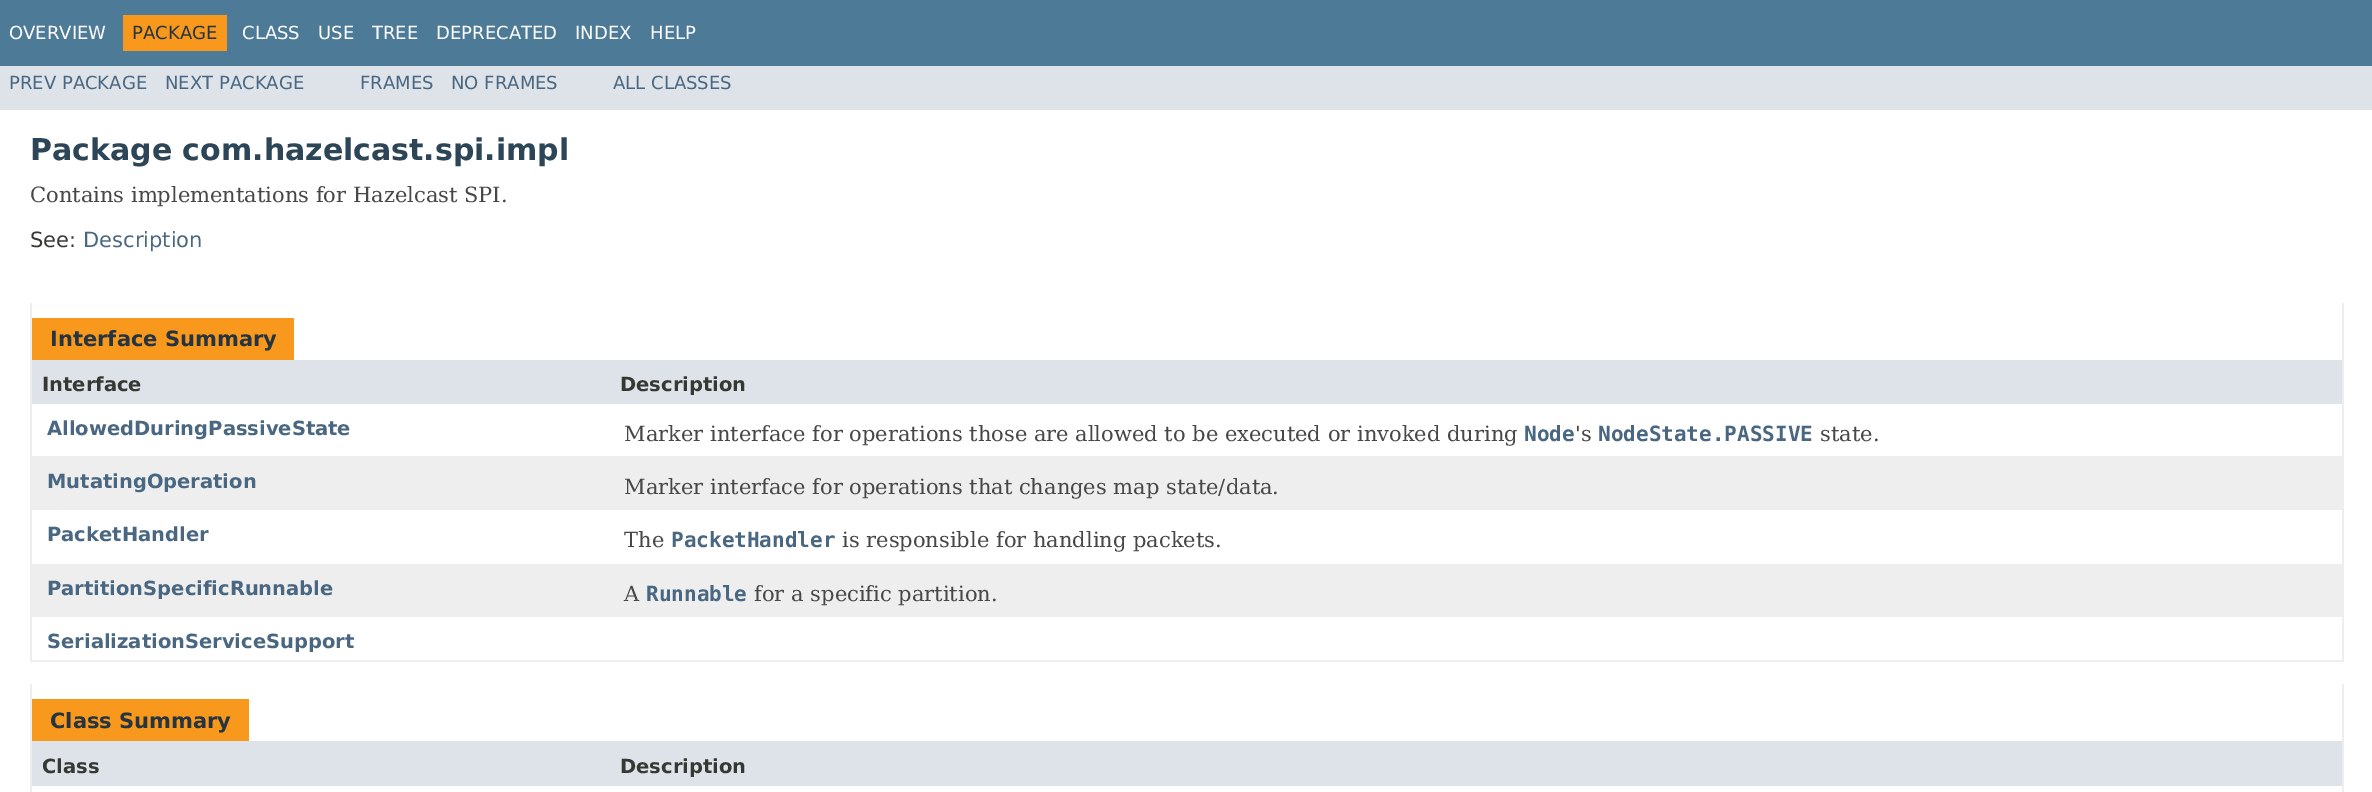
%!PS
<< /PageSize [2372 792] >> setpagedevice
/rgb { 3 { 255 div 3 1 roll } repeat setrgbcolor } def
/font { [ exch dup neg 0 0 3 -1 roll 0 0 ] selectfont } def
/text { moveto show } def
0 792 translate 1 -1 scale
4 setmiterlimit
255 255 255 rgb
0 0 2372 792 rectfill
77 122 151 rgb
0 0 2372 66 rectfill
248 152 29 rgb
123 15 104 36 rectfill
222 227 233 rgb
0 66 2372 44 rectfill
238 238 238 rgb
2342 303 2 359 rectfill
30 660 2313 2 rectfill
30 303 2 359 rectfill
248 152 29 rgb
32 318 262 42 rectfill
222 227 233 rgb
32 360 2310 44 rectfill
238 238 239 rgb
32 456 2310 54 rectfill
32 564 2310 53 rectfill
238 238 238 rgb
2342 684 2 108 rectfill
30 684 2 108 rectfill
248 152 29 rgb
32 699 217 42 rectfill
222 227 233 rgb
32 741 2310 45 rectfill
/DejaVuSans-Regular 18 font
255 255 255 rgb
(OVERVIEW) 9 39 text
37 52 65 rgb
(PACKAGE) 132 39 text
255 255 255 rgb
(CLASS) 242 39 text
(USE) 318 39 text
(TREE) 372 39 text
(DEPRECATED) 436 39 text
(INDEX) 575 39 text
(HELP) 650 39 text
74 103 130 rgb
(PREV PACKAGE) 9 89 text
(NEXT PACKAGE) 165 89 text
(FRAMES) 360 89 text
(NO FRAMES) 451 89 text
(ALL CLASSES) 613 89 text
/DejaVuSans-Bold 30 font
44 69 87 rgb
(Package com.hazelcast.spi.impl) 30 160 text
/DejaVuSerif-Regular 21 font
71 71 71 rgb
(Contains implementations for Hazelcast SPI.) 30 202 text
/DejaVuSans-Regular 21 font
53 56 51 rgb
(See:) 30 247 text
74 103 130 rgb
(Description) 83 247 text
/DejaVuSans-Bold 21 font
37 52 65 rgb
(Interface Summary) 50 346 text
/DejaVuSans-Bold 19.5 font
53 56 51 rgb
(Interface) 42 391 text
(Description) 620 391 text
74 103 130 rgb
(AllowedDuringPassiveState) 47 435 text
/DejaVuSerif-Regular 21 font
71 71 71 rgb
(Marker interface for operations those are allowed to be executed or invoked during) 624 441 text
/DejaVuSansMono-Bold 21 font
74 103 130 rgb
(Node) 1524 441 text
/DejaVuSerif-Regular 21 font
71 71 71 rgb
('s) 1575 441 text
/DejaVuSansMono-Bold 21 font
74 103 130 rgb
(NodeState.PASSIVE) 1598 441 text
/DejaVuSerif-Regular 21 font
71 71 71 rgb
(state.) 1820 441 text
/DejaVuSans-Bold 19.5 font
74 103 130 rgb
(MutatingOperation) 47 488 text
/DejaVuSerif-Regular 21 font
71 71 71 rgb
(Marker interface for operations that changes map state/data.) 624 494 text
/DejaVuSans-Bold 19.5 font
74 103 130 rgb
(PacketHandler) 47 541 text
/DejaVuSerif-Regular 21 font
71 71 71 rgb
(The) 624 547 text
/DejaVuSansMono-Bold 21 font
74 103 130 rgb
(PacketHandler) 671 547 text
/DejaVuSerif-Regular 21 font
71 71 71 rgb
(is responsible for handling packets.) 842 547 text
/DejaVuSans-Bold 19.5 font
74 103 130 rgb
(PartitionSpecificRunnable) 47 595 text
/DejaVuSerif-Regular 21 font
71 71 71 rgb
(A) 624 601 text
/DejaVuSansMono-Bold 21 font
74 103 130 rgb
(Runnable) 646 601 text
/DejaVuSerif-Regular 21 font
71 71 71 rgb
(for a specific partition.) 754 601 text
/DejaVuSans-Bold 19.5 font
74 103 130 rgb
(SerializationServiceSupport) 47 648 text
/DejaVuSans-Bold 21 font
37 52 65 rgb
(Class Summary) 50 728 text
/DejaVuSans-Bold 19.5 font
53 56 51 rgb
(Class) 42 773 text
(Description) 620 773 text
showpage
